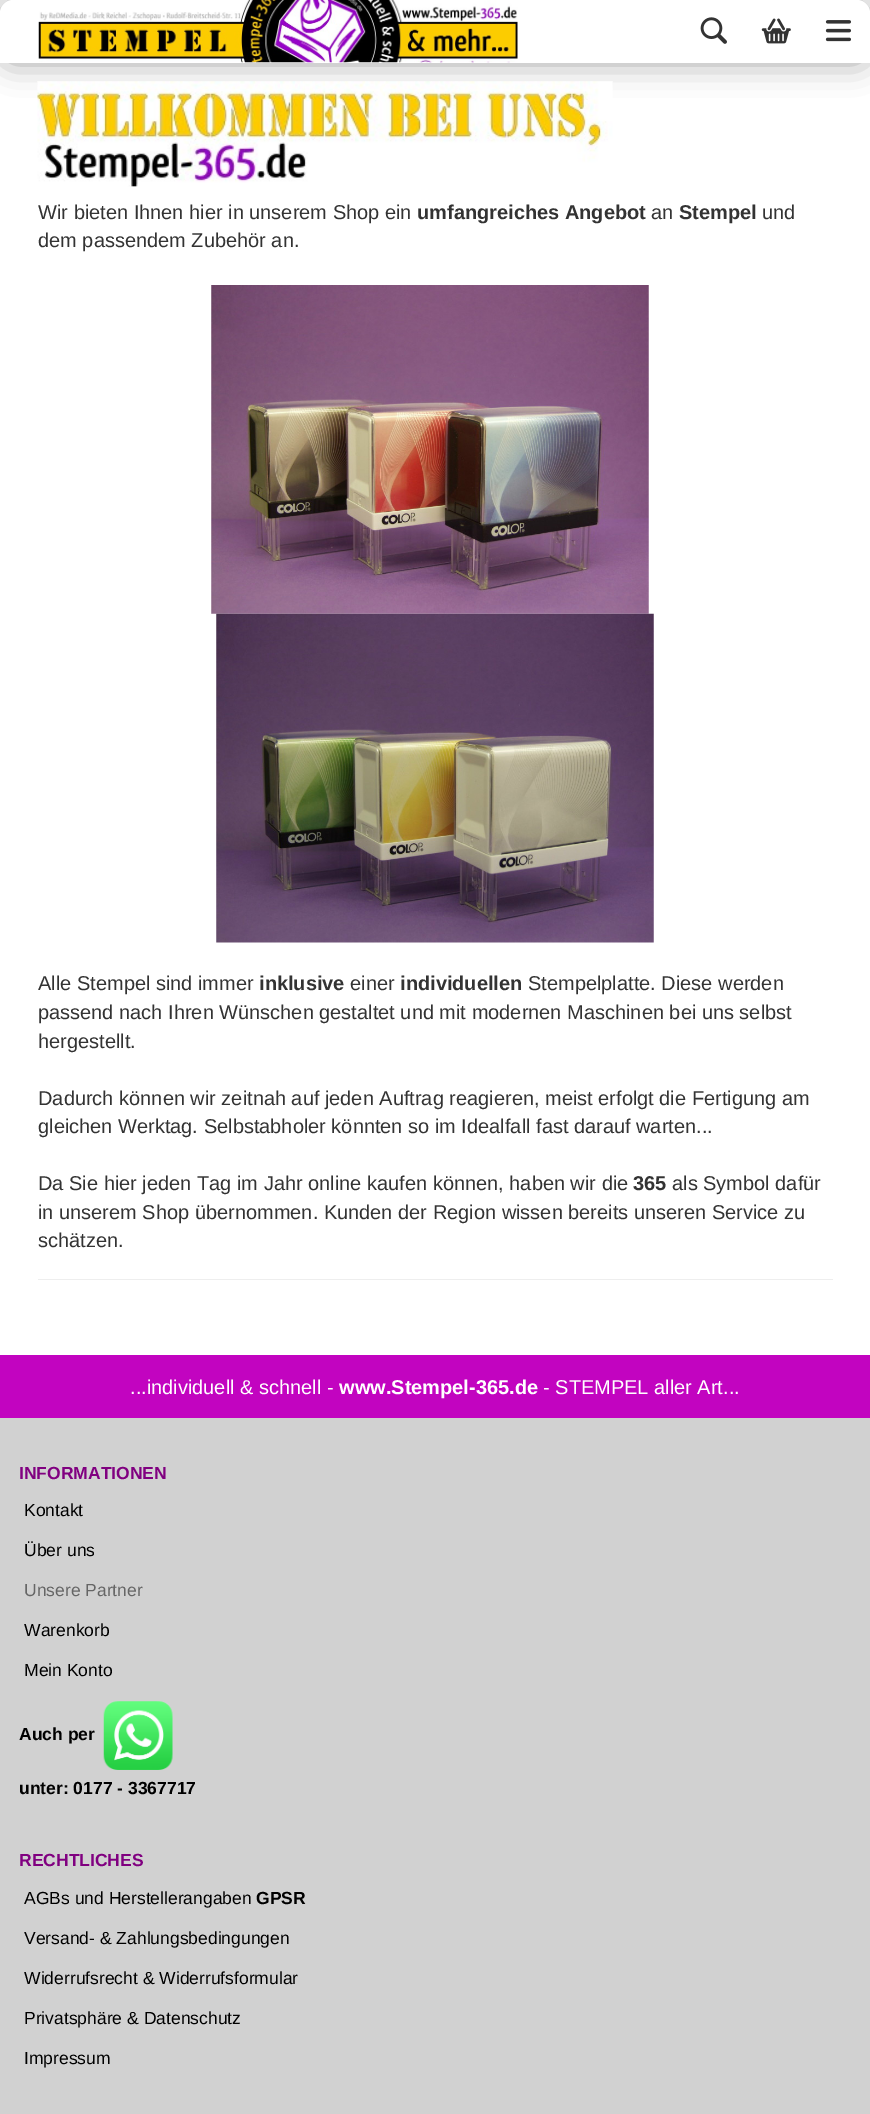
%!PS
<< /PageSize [870 2114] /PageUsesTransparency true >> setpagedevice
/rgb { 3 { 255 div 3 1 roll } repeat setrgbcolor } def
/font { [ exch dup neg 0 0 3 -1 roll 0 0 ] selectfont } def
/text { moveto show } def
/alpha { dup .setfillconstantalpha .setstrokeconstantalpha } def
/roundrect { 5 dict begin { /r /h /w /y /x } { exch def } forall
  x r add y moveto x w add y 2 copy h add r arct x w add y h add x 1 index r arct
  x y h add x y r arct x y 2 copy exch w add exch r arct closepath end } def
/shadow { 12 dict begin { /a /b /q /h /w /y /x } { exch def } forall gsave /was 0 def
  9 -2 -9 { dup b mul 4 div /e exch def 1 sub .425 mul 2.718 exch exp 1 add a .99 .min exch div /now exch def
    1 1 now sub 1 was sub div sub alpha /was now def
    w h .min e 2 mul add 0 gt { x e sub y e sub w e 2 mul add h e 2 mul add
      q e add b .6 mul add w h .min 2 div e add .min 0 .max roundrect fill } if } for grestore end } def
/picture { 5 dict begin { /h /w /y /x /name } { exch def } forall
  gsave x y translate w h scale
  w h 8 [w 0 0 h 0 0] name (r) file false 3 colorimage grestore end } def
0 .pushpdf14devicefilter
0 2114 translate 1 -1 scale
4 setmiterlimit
255 255 255 rgb
0 0 870 2114 rectfill
(img_01.rgb) 0 0 870 13 picture
0 0 870 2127 13 roundrect fill
0 0 0 rgb
0 0 870 63 13 15.5 0.35 shadow
255 255 255 rgb
13 0 moveto 844 0 rlineto 7 0 13 6 13 13 rcurveto 0 50 rlineto -870 0 rlineto 0 -50 rlineto 0 -7 6 -13 13 -13 rcurveto closepath fill
(img_02.rgb) 38 0 480 63 picture
(img_03.rgb) 700 17 27 27 picture
(img_04.rgb) 761 18 30 26 picture
(img_05.rgb) 825 20 26 22 picture
(img_06.rgb) 37 81 576 106 picture
(img_07.rgb) 211 285 438 329 picture
(img_08.rgb) 216 613 438 330 picture
238 238 238 rgb
38 1279 795 1 rectfill
209 209 209 rgb
0 1418 870 696 rectfill
194 4 192 rgb
0 1355 870 63 rectfill
(img_09.rgb) 103 1701 70 69 picture
/LiberationSans-Regular 20 font
51 51 51 rgb
(Wir bieten Ihnen hier in unserem Shop ein) 38 219 text
/LiberationSans-Bold 20 font
(umfangreiches Angebot) 417 219 text
/LiberationSans-Regular 20 font
(an) 651 219 text
/LiberationSans-Bold 20 font
(Stempel) 679 219 text
/LiberationSans-Regular 20 font
(und) 762 219 text
(dem passendem Zubehör an.) 38 247 text
(Alle Stempel sind immer) 38 990 text
/LiberationSans-Bold 20 font
(inklusive) 259 990 text
/LiberationSans-Regular 20 font
(einer) 350 990 text
/LiberationSans-Bold 20 font
(individuellen) 400 990 text
/LiberationSans-Regular 20 font
(Stempelplatte. Diese werden) 528 990 text
(passend nach Ihren Wünschen gestaltet und mit modernen Maschinen bei uns selbst) 38 1019 text
(hergestellt.) 38 1048 text
(Dadurch können wir zeitnah auf jeden Auftrag reagieren, meist erfolgt die Fertigung am) 38 1105 text
(gleichen Werktag. Selbstabholer könnten so im Idealfall fast darauf warten...) 38 1133 text
(Da Sie hier jeden Tag im Jahr online kaufen können, haben wir die) 38 1190 text
/LiberationSans-Bold 20 font
(365) 633 1190 text
/LiberationSans-Regular 20 font
(als Symbol dafür) 672 1190 text
(in unserem Shop übernommen. Kunden der Region wissen bereits unseren Service zu) 38 1219 text
(schätzen.) 38 1247 text
255 255 255 rgb
(...individuell & schnell -) 130 1394 text
/LiberationSans-Bold 20 font
(www.Stempel-365.de) 339 1394 text
/LiberationSans-Regular 20 font
(- STEMPEL aller Art...) 543 1394 text
/LiberationSans-Bold 17.5 font
128 0 128 rgb
(INFORMATIONEN) 19 1479 text
/LiberationSans-Regular 17.5 font
0 0 0 rgb
(Kontakt) 24 1516 text
(Über uns) 24 1556 text
102 102 102 rgb
(Unsere Partner) 24 1596 text
0 0 0 rgb
(Warenkorb) 24 1636 text
(Mein Konto) 24 1676 text
/LiberationSans-Bold 17.5 font
(Auch per) 19 1740 text
(unter: 0177 - 3367717) 19 1794 text
128 0 128 rgb
(RECHTLICHES) 19 1866 text
/LiberationSans-Regular 17.5 font
0 0 0 rgb
(AGBs und Herstellerangaben) 24 1904 text
/LiberationSans-Bold 17.5 font
(GPSR) 256 1904 text
/LiberationSans-Regular 17.5 font
(Versand- & Zahlungsbedingungen) 24 1944 text
(Widerrufsrecht & Widerrufsformular) 24 1984 text
(Privatsphäre & Datenschutz) 24 2024 text
(Impressum) 24 2064 text
.poppdf14devicefilter showpage
